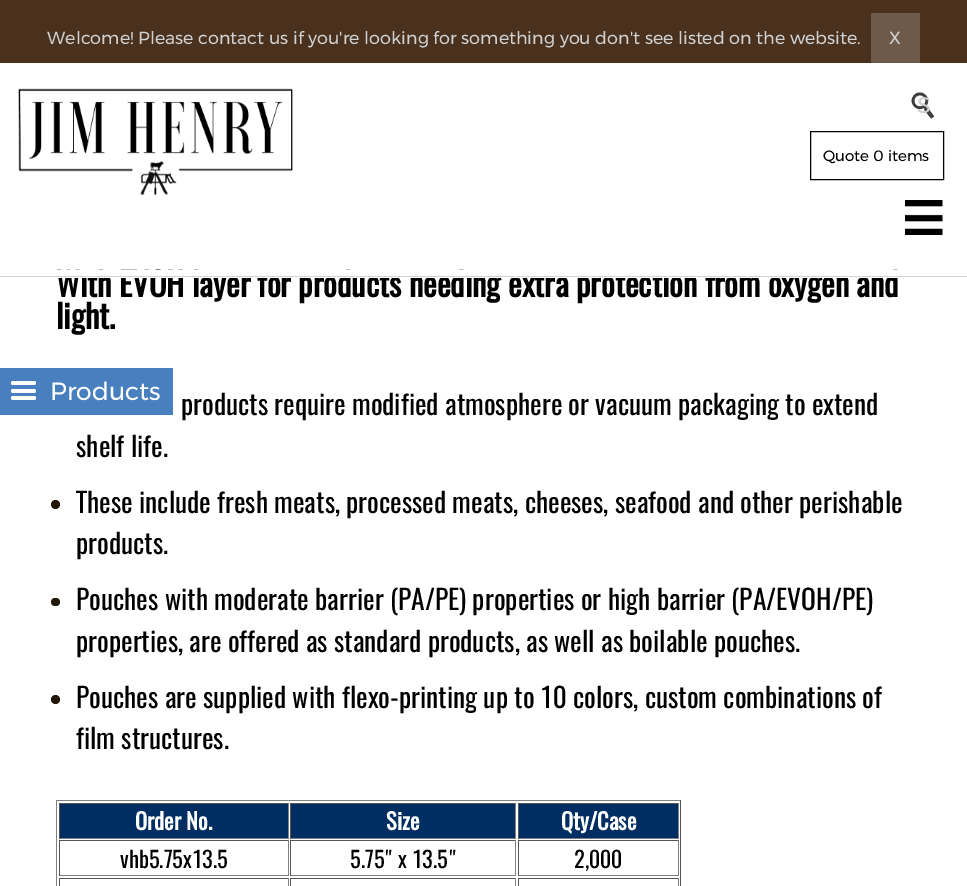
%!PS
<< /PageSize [967 886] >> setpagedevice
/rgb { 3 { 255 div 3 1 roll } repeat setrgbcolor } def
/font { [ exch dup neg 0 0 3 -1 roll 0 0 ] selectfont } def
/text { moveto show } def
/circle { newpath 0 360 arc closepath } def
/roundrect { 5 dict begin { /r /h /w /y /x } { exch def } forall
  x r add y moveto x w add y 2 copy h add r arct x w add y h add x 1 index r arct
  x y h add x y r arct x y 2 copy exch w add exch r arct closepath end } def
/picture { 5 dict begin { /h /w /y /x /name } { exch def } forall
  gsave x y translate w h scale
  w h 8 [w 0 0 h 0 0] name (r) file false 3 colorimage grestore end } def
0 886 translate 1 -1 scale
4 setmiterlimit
255 255 255 rgb
0 0 967 886 rectfill
73 49 30 rgb
0 0 967 63 rectfill
109 90 75 rgb
871 13 49 50 rectfill
(img_01.rgb) 18 88 275 107 picture
(img_02.rgb) 911 92 24 27 picture
0 0 0 rgb
810.5 131.5 133 48 rectstroke
(img_03.rgb) 905 200 38 35 picture
35 24 8 rgb
55.5 504.5 4.5 circle fill
51 598 9 8 4 roundrect fill
55.5 699.5 4.5 circle fill
128 128 128 rgb
56 800 625 1 rectfill
85 85 85 rgb
680 800 1 86 rectfill
128 128 128 rgb
56 800 1 86 rectfill
0 46 98 rgb
60 804 228 34 rectfill
85 85 85 rgb
59 803 230 1 rectfill
128 128 128 rgb
288 803 1 36 rectfill
59 838 230 1 rectfill
85 85 85 rgb
59 803 1 36 rectfill
0 46 98 rgb
291 804 224 34 rectfill
85 85 85 rgb
290 803 226 1 rectfill
128 128 128 rgb
515 803 1 36 rectfill
290 838 226 1 rectfill
85 85 85 rgb
290 803 1 36 rectfill
0 46 98 rgb
519 804 159 34 rectfill
85 85 85 rgb
518 803 161 1 rectfill
128 128 128 rgb
678 803 1 36 rectfill
518 838 161 1 rectfill
85 85 85 rgb
518 803 1 36 rectfill
59 840 230 1 rectfill
128 128 128 rgb
288 840 1 36 rectfill
59 875 230 1 rectfill
85 85 85 rgb
59 840 1 36 rectfill
290 840 226 1 rectfill
128 128 128 rgb
515 840 1 36 rectfill
290 875 226 1 rectfill
85 85 85 rgb
290 840 1 36 rectfill
518 840 161 1 rectfill
128 128 128 rgb
678 840 1 36 rectfill
518 875 161 1 rectfill
85 85 85 rgb
518 840 1 36 rectfill
59 878 230 1 rectfill
128 128 128 rgb
288 878 1 8 rectfill
85 85 85 rgb
59 878 1 8 rectfill
290 878 226 1 rectfill
128 128 128 rgb
515 878 1 8 rectfill
85 85 85 rgb
290 878 1 8 rectfill
518 878 161 1 rectfill
128 128 128 rgb
678 878 1 8 rectfill
85 85 85 rgb
518 878 1 8 rectfill
72 127 190 rgb
0 368 173 47 rectfill
255 255 255 rgb
11 389 25 4 2 roundrect fill
11 381 25 4 2 roundrect fill
11 396 25 4 2 roundrect fill
/Montserrat-Regular 17.5 font
208 208 208 rgb
(Welcome! Please contact us if you're looking for something you don't see listed on the website.) 47 44 text
(X) 889 44 text
/Montserrat-Regular 22.5 font
(S) 917 113 text
/Montserrat-Regular 15 font
0 0 0 rgb
(Quote 0 items) 823 161 text
/Oswald-Bold 32.5 font
(With EVOH layer for products needing extra protection from oxygen and) 56 297 text
255 255 255 rgb
57 270 841 8 rectfill
211 212 212 rgb
0 276 967 1 rectfill
0 0 0 rgb
(light.) 56 329 text
/Oswald-Regular 27.5 font
(products require modified atmosphere or vacuum packaging to extend) 181 415 text
(shelf life.) 76 457 text
(These include fresh meats, processed meats, cheeses, seafood and other perishable) 76 513 text
(products.) 76 554 text
(Pouches with moderate barrier \(PA/PE\) properties or high barrier \(PA/EVOH/PE\)) 76 610 text
(properties, are offered as standard products, as well as boilable pouches.) 76 652 text
(Pouches are supplied with flexo-printing up to 10 colors, custom combinations of) 76 708 text
(film structures.) 76 749 text
/Oswald-Bold 22.5 font
255 255 255 rgb
(Order No.) 135 830 text
(Size) 386 830 text
(Qty/Case) 561 830 text
/Oswald-Regular 22.5 font
0 0 0 rgb
(vhb5.75x13.5) 120 868 text
(5.75" x 13.5") 350 868 text
(2,000) 574 868 text
/Montserrat-Regular 25 font
255 255 255 rgb
(Products) 50 400 text
showpage
